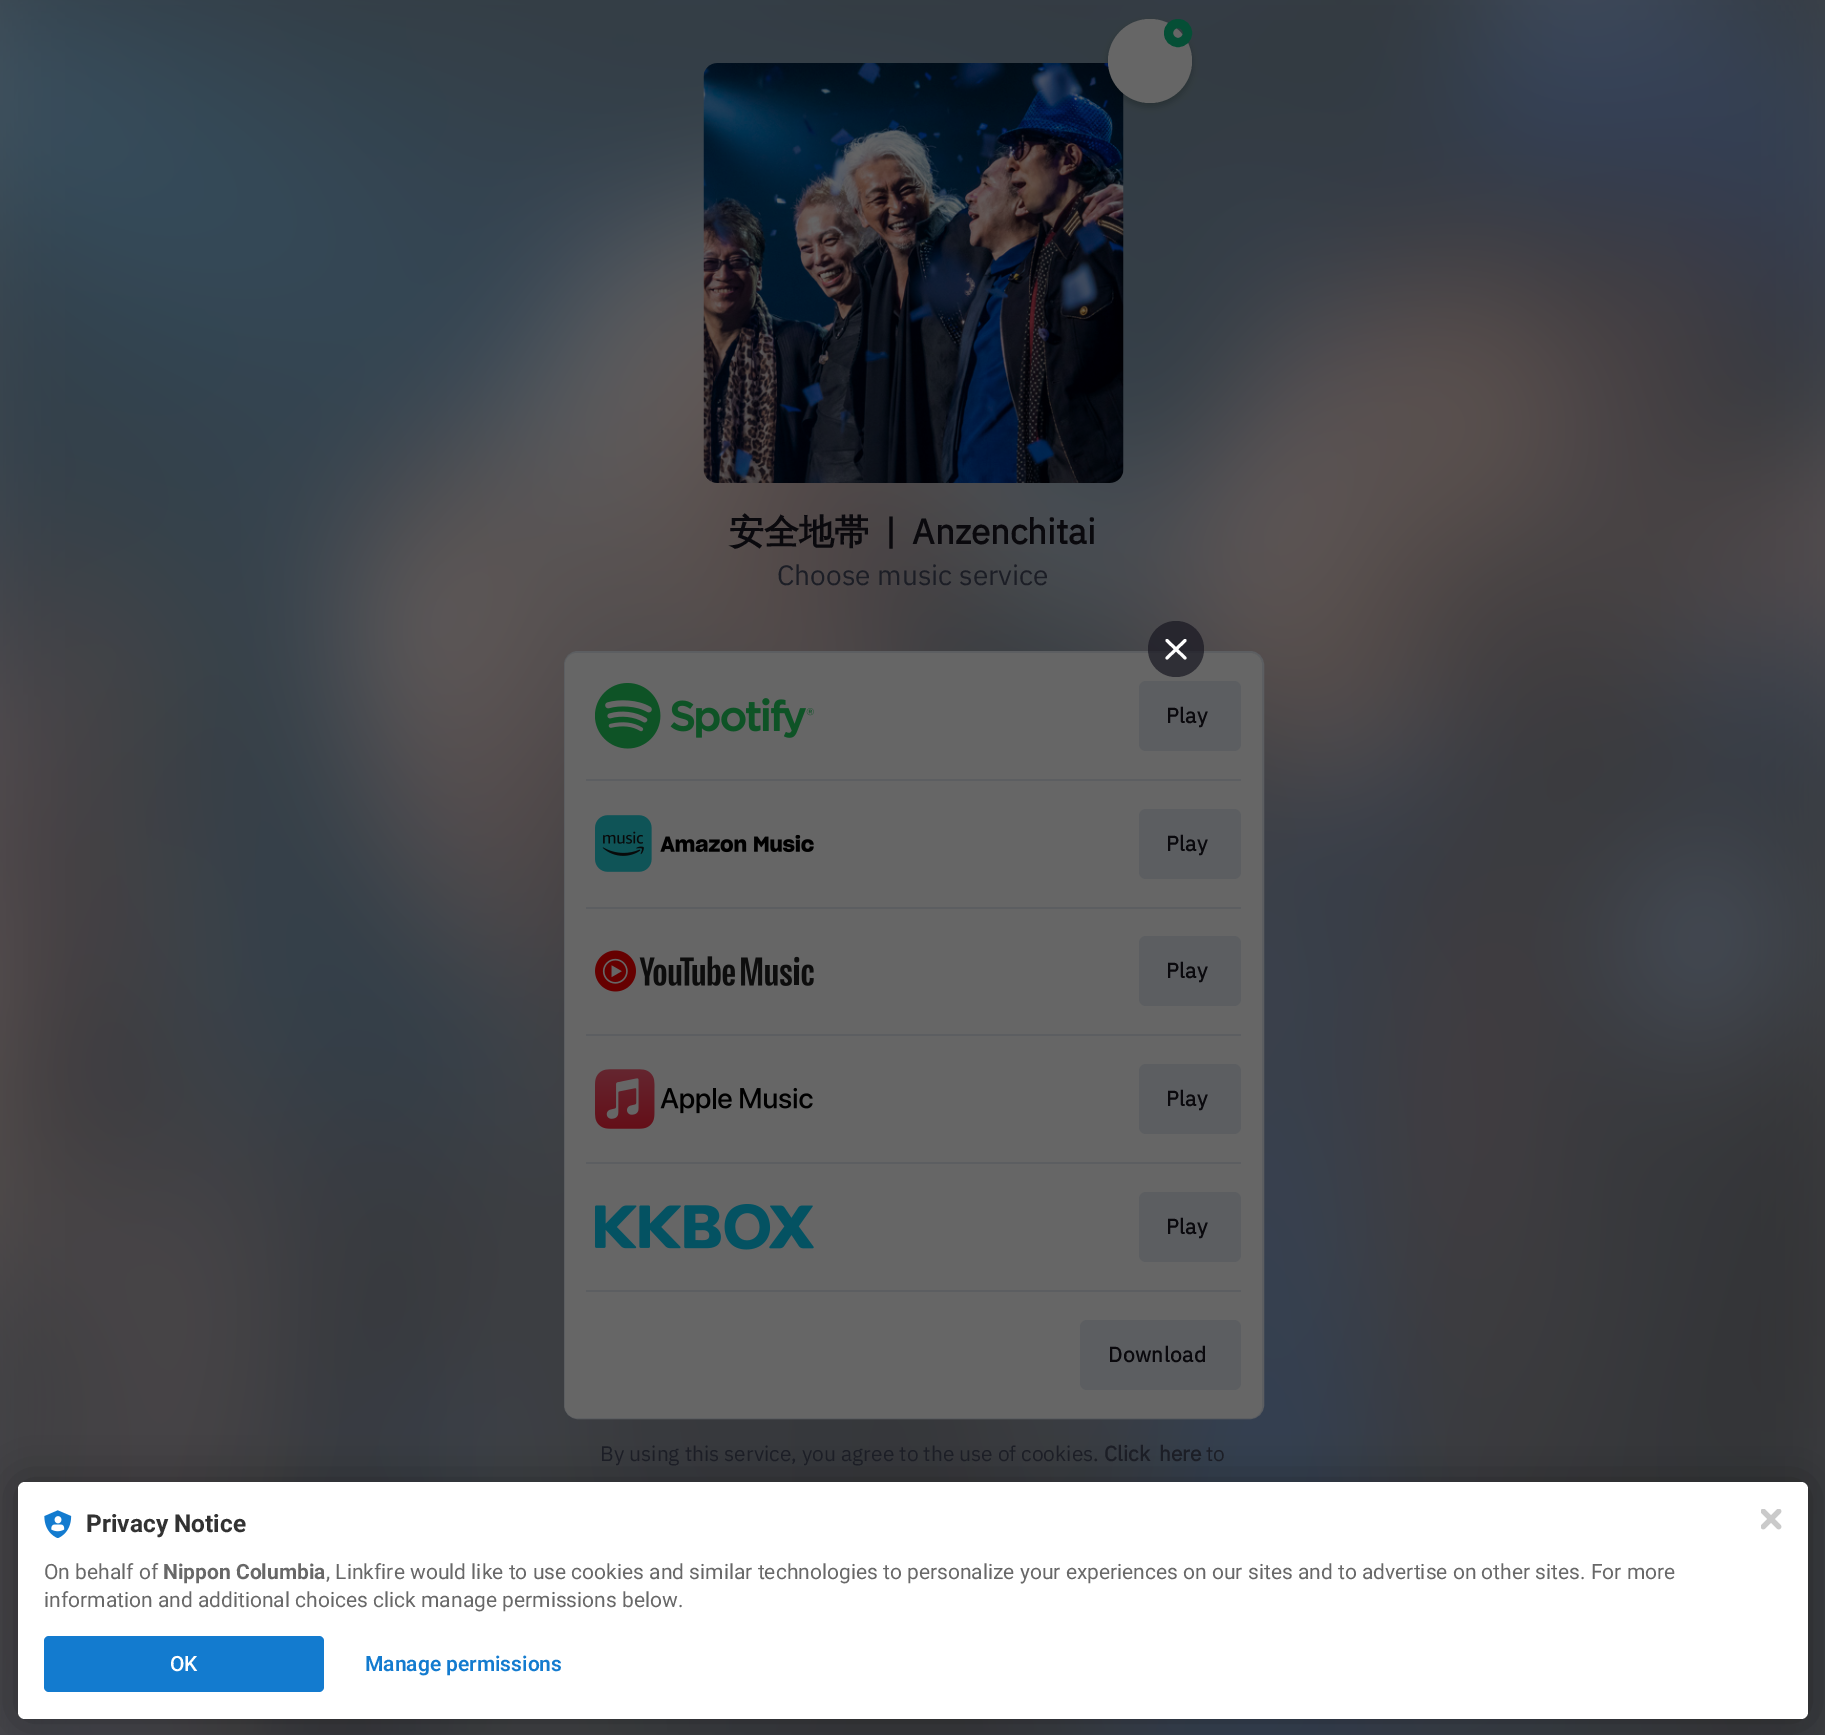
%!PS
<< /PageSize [1825 1735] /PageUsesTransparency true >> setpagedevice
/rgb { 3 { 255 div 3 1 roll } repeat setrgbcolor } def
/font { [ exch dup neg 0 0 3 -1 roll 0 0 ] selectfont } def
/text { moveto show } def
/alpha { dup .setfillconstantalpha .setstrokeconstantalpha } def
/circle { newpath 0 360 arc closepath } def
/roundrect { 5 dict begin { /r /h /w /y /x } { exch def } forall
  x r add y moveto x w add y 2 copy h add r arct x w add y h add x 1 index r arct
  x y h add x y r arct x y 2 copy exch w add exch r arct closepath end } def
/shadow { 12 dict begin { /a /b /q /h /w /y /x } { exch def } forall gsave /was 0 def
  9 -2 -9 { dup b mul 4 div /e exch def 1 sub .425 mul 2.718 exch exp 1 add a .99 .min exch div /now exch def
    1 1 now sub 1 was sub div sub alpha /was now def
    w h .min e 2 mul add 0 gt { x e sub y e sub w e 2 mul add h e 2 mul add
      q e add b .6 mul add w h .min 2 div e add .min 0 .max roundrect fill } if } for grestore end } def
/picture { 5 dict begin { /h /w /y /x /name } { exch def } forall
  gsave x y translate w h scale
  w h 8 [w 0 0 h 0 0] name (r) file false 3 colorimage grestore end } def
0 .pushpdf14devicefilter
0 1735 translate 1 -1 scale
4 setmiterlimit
102 102 102 rgb
0 0 1825 1735 rectfill
(img_01.rgb) 0 0 1825 1735 picture
(img_02.rgb) 703 63 421 420 picture
0 0 0 rgb
1108 23 84 84 42 3.5 0.2 shadow
102 102 102 rgb
1150 61 42 circle fill
5 79 54 rgb
9 setlinewidth
1178 33 9.5 circle stroke
92 94 97 rgb
2 setlinewidth
565 652 698 766 13 roundrect stroke
102 102 102 rgb
565 653 697 765 12 roundrect fill
0.7 alpha
24 23 33 rgb
1176 649 28 circle fill
1 alpha
255 255 255 rgb
3 setlinewidth
1 setlinecap
1 setlinejoin
1167 640.5 moveto 18 17.5 rlineto 1167 658 moveto 18 -17.5 rlineto stroke
(img_03.rgb) 595 683 219 66 picture
92 94 97 rgb
1139 681 102 70 7 roundrect fill
586 779 655 2 rectfill
(img_04.rgb) 595 815 219 57 picture
1139 809 102 70 7 roundrect fill
586 907 655 2 rectfill
(img_05.rgb) 595 950 219 42 picture
1139 936 102 70 7 roundrect fill
586 1034 655 2 rectfill
(img_06.rgb) 595 1069 218 60 picture
1139 1064 102 70 7 roundrect fill
586 1162 655 2 rectfill
(img_07.rgb) 595 1204 219 46 picture
1139 1192 102 70 7 roundrect fill
586 1290 655 2 rectfill
1080 1320 161 70 7 roundrect fill
0 0 0 rgb
18 1482 1790 237 7 21 0.3 shadow
255 255 255 rgb
18 1482 1790 237 7 roundrect fill
(img_08.rgb) 44 1510 28 28 picture
19 123 207 rgb
44 1636 280 56 5 roundrect fill
(img_09.rgb) 1761 1509 21 21 picture
/WenQuanYiZenHei-Bold 35 font
10 9 13 rgb
(安全地帯) 729 544 text
/IBMPlexSans-Bold 35 font
885 544 moveto 8 0 32 (| Anzenchitai) widthshow
/IBMPlexSans-Regular 28 font
28 30 38 rgb
(Choose music service) 777 585 text
/IBMPlexSans-Bold 21 font
10 9 13 rgb
1166 723 moveto 0.5 0 (Play) ashow
1166 851 moveto 0.5 0 (Play) ashow
1166 978 moveto 0.5 0 (Play) ashow
1166 1106 moveto 0.5 0 (Play) ashow
1166 1234 moveto 0.5 0 (Play) ashow
1108 1362 moveto 0.5 0 (Download) ashow
/IBMPlexSans-Regular 21 font
28 30 38 rgb
(By using this service, you agree to the use of cookies.) 600 1461 text
/IBMPlexSans-Bold 21 font
1104 1461 moveto 4 0 32 (Click here) widthshow
/IBMPlexSans-Regular 21 font
(to) 1206 1461 text
/Roboto-Bold 24.5 font
50 50 50 rgb
(Privacy Notice) 86 1532 text
/Roboto-Regular 21 font
104 104 104 rgb
(On behalf of) 44 1579 text
/Roboto-Bold 21 font
(Nippon Columbia) 163 1579 text
/Roboto-Regular 21 font
(, Linkfire would like to use cookies and similar technologies to personalize your experiences on our sites and to advertise on other sites. For more) 326 1579 text
(information and additional choices click manage permissions below.) 44 1607 text
/Roboto-Medium 21 font
255 255 255 rgb
(OK) 170 1671 text
/Roboto-SemiBold 21 font
19 123 207 rgb
(Manage permissions) 365 1671 text
.poppdf14devicefilter showpage
